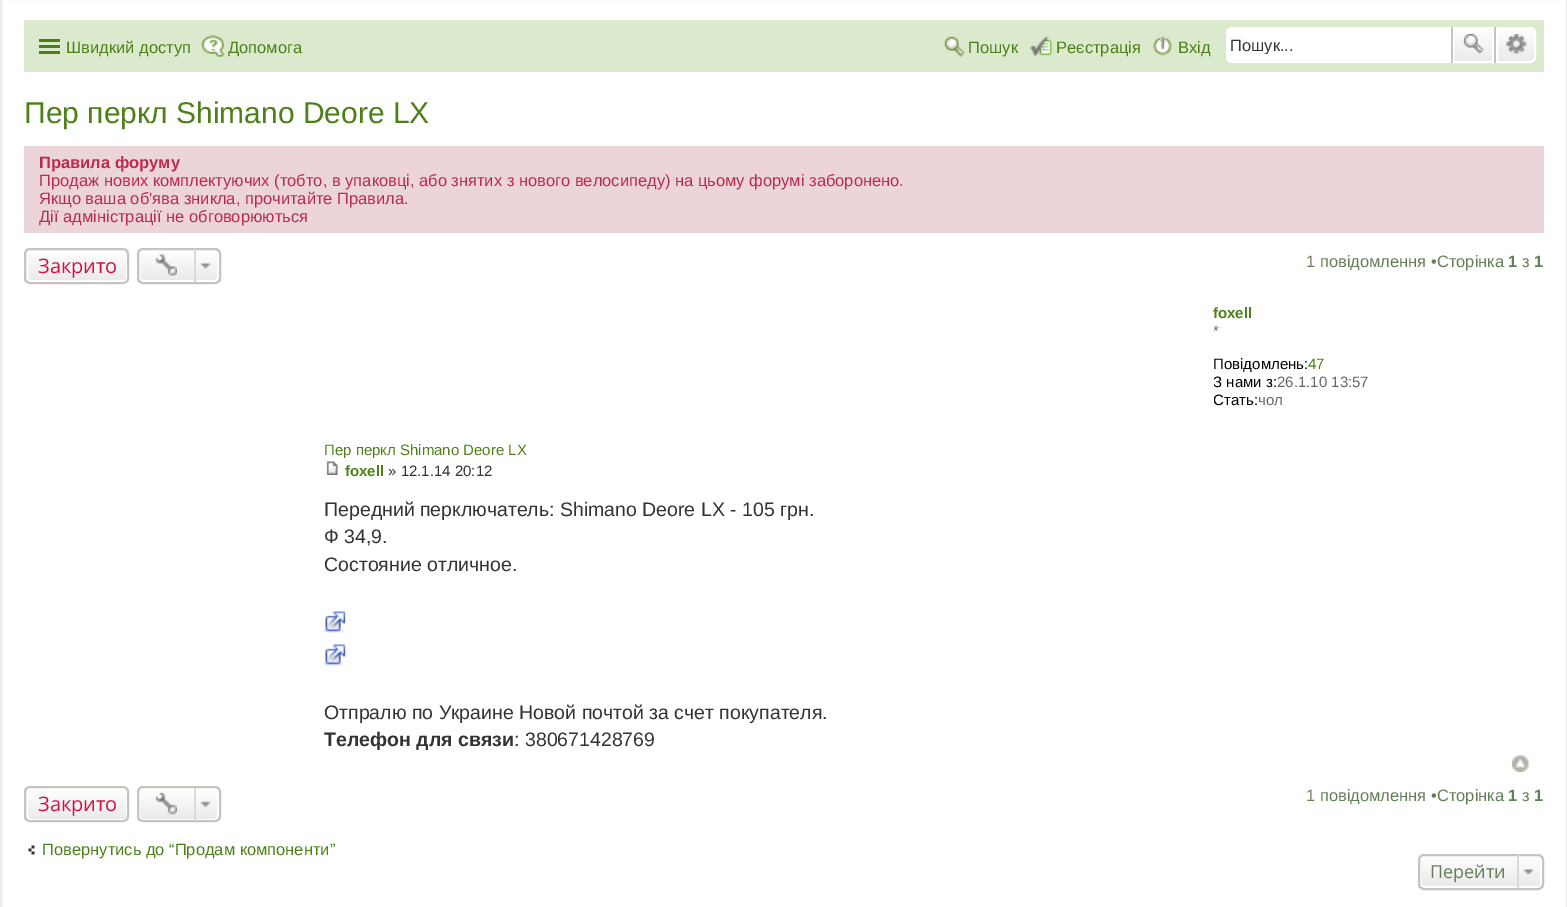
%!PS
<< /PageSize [1567 907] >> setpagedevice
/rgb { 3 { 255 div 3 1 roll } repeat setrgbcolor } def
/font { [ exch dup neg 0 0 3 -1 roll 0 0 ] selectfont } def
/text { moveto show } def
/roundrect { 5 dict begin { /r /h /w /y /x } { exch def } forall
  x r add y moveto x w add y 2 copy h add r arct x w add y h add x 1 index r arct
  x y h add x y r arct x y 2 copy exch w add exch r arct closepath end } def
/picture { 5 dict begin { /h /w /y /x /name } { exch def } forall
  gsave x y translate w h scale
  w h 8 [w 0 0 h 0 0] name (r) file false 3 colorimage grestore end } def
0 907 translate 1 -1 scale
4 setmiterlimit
255 255 255 rgb
0 0 1567 907 rectfill
233 236 231 rgb
2 setlinewidth
1 -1 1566 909 rectstroke
219 233 204 rgb
24 20 1520 52 rectfill
78 128 25 rgb
39 39 21 3 rectfill
39 45 21 3 rectfill
39 51 21 3 rectfill
(img_01.rgb) 201 35 24 22 picture
(img_02.rgb) 944 36 21 21 picture
(img_03.rgb) 1030 36 22 21 picture
(img_04.rgb) 1153 36 19 20 picture
255 255 255 rgb
1232 27 moveto 219 0 rlineto 0 36 rlineto -219 0 rlineto -3.5 0 -6 -2.5 -6 -6 rcurveto 0 -24 rlineto 0 -3.5 2.5 -6 6 -6 rcurveto closepath fill
gsave 1454 29 moveto 38 0 rlineto 0 32 rlineto -38 0 rlineto closepath clip newpath
<< /ShadingType 2 /ColorSpace /DeviceRGB /Coords [1473 27 1473 63] /Extend [true true] /Function << /FunctionType 2 /Domain [0 1] /C0 [1 1 1] /C1 [0.914 0.914 0.914] /N 1 >> >> shfill grestore
1453 28 40 34 rectstroke
199 195 191 rgb
1494 27 2 36 rectfill
1451 27 2 36 rectfill
(img_05.rgb) 1463 34 21 20 picture
gsave 1497 28 moveto 33 0 rlineto 3 0 5 2 5 5 rcurveto 0 24 rlineto 0 3 -2 5 -5 5 rcurveto -33 0 rlineto closepath clip newpath
<< /ShadingType 2 /ColorSpace /DeviceRGB /Coords [1516 27 1516 63] /Extend [true true] /Function << /FunctionType 2 /Domain [0 1] /C0 [1 1 1] /C1 [0.914 0.914 0.914] /N 1 >> >> shfill grestore
255 255 255 rgb
1497 28 moveto 33 0 rlineto 3 0 5 2 5 5 rcurveto 0 24 rlineto 0 3 -2 5 -5 5 rcurveto -33 0 rlineto closepath stroke
(img_06.rgb) 1505 34 23 20 picture
236 213 216 rgb
24 146 1520 87 rectfill
gsave
24 248 105 36 6 roundrect clip newpath
gsave 24 249 moveto 105 0 rlineto 0 33 rlineto -105 0 rlineto closepath clip newpath
<< /ShadingType 2 /ColorSpace /DeviceRGB /Coords [77 249 77 282] /Extend [true true] /Function << /FunctionType 2 /Domain [0 1] /C0 [1 1 1] /C1 [0.914 0.914 0.914] /N 1 >> >> shfill grestore
grestore
255 255 255 rgb
27 250 100 31 4 roundrect stroke
199 195 191 rgb
25 249 103 34 5 roundrect stroke
gsave
137 248 84 36 6 roundrect clip newpath
gsave 137 249 moveto 84 0 rlineto 0 33 rlineto -84 0 rlineto closepath clip newpath
<< /ShadingType 2 /ColorSpace /DeviceRGB /Coords [179 249 179 282] /Extend [true true] /Function << /FunctionType 2 /Domain [0 1] /C0 [1 1 1] /C1 [0.914 0.914 0.914] /N 1 >> >> shfill grestore
grestore
255 255 255 rgb
139 250 79 31 4 roundrect stroke
199 195 191 rgb
138 249 82 34 5 roundrect stroke
(img_07.rgb) 155 254 22 23 picture
(img_08.rgb) 200 263 11 6 picture
218 218 218 rgb
194 249 2 33 rectfill
(img_09.rgb) 326 461 12 14 picture
(img_10.rgb) 324 611 22 22 picture
(img_10.rgb) 324 644 22 22 picture
(img_11.rgb) 1512 755 17 17 picture
gsave
24 786 105 36 6 roundrect clip newpath
gsave 24 788 moveto 105 0 rlineto 0 33 rlineto -105 0 rlineto closepath clip newpath
<< /ShadingType 2 /ColorSpace /DeviceRGB /Coords [77 788 77 821] /Extend [true true] /Function << /FunctionType 2 /Domain [0 1] /C0 [1 1 1] /C1 [0.914 0.914 0.914] /N 1 >> >> shfill grestore
grestore
255 255 255 rgb
27 789 100 31 4 roundrect stroke
199 195 191 rgb
25 787 103 34 5 roundrect stroke
gsave
137 786 84 36 6 roundrect clip newpath
gsave 137 788 moveto 84 0 rlineto 0 33 rlineto -84 0 rlineto closepath clip newpath
<< /ShadingType 2 /ColorSpace /DeviceRGB /Coords [179 788 179 821] /Extend [true true] /Function << /FunctionType 2 /Domain [0 1] /C0 [1 1 1] /C1 [0.914 0.914 0.914] /N 1 >> >> shfill grestore
grestore
255 255 255 rgb
139 789 79 31 4 roundrect stroke
199 195 191 rgb
138 787 82 34 5 roundrect stroke
(img_12.rgb) 155 793 22 22 picture
(img_13.rgb) 200 801 11 7 picture
218 218 218 rgb
194 788 2 33 rectfill
(img_14.rgb) 28 845 7 10 picture
gsave
1418 854 126 36 6 roundrect clip newpath
gsave 1418 855 moveto 126 0 rlineto 0 33 rlineto -126 0 rlineto closepath clip newpath
<< /ShadingType 2 /ColorSpace /DeviceRGB /Coords [1481 855 1481 888] /Extend [true true] /Function << /FunctionType 2 /Domain [0 1] /C0 [1 1 1] /C1 [0.914 0.914 0.914] /N 1 >> >> shfill grestore
grestore
255 255 255 rgb
1420 856 121 31 4 roundrect stroke
199 195 191 rgb
1419 855 124 34 5 roundrect stroke
(img_15.rgb) 1523 869 11 6 picture
218 218 218 rgb
1517 855 2 33 rectfill
/LiberationSans-Regular 16.5 font
78 128 25 rgb
(Швидкий доступ) 66 53 text
(Допомога) 228 53 text
(Пошук) 968 53 text
(Реєстрація) 1056 53 text
(Вхід) 1178 53 text
gsave
1230 36 198 18 rectclip
51 51 51 rgb
(Пошук...) 1230 51 text
grestore
/LiberationSans-Regular 30 font
(Пер перкл Shimano Deore LX) 24 123 text
/LiberationSans-Bold 16.5 font
188 42 77 rgb
(Правила форуму) 39 168 text
/LiberationSans-Regular 16.5 font
(Продаж нових комплектуючих \(тобто, в упаковці, або знятих з нового велосипеду\) на цьому форумі заборонено.) 39 186 text
(Якщо ваша об'ява зникла, прочитайте Правила.) 39 204 text
(Дії адміністрації не обговорюються) 39 222 text
/OpenSans-Regular 20 font
211 17 65 rgb
(Закрито) 38 273 text
/LiberationSans-Regular 16.5 font
100 126 87 rgb
(1 повідомлення •Сторінка) 1306 267 text
/LiberationSans-Bold 16.5 font
(1) 1508 267 text
/LiberationSans-Regular 16.5 font
(з) 1522 267 text
/LiberationSans-Bold 16.5 font
(1) 1534 267 text
/LiberationSans-Bold 15 font
78 128 25 rgb
(foxell) 1213 318 text
gsave
1214 323 315 18 rectclip
/LiberationSans-Regular 15 font
102 102 102 rgb
(*) 1213 336 text
grestore
/LiberationSans-Regular 15 font
0 0 0 rgb
(Повідомлень:) 1213 369 text
78 128 25 rgb
(47) 1308 369 text
gsave
1214 374 315 18 rectclip
0 0 0 rgb
(З нами з:) 1213 387 text
grestore
102 102 102 rgb
(26.1.10 13:57) 1277 387 text
gsave
1214 392 315 18 rectclip
0 0 0 rgb
(Стать:) 1213 405 text
grestore
(чол) 1258 405 text
78 128 25 rgb
(Пер перкл Shimano Deore LX) 324 455 text
/LiberationSans-Bold 15 font
(foxell) 345 476 text
/LiberationSans-Regular 15 font
51 51 51 rgb
(» 12.1.14 20:12) 388 476 text
/LiberationSans-Regular 19.5 font
(Передний перключатель: Shimano Deore LX - 105 грн.) 324 516 text
(Ф 34,9.) 324 543 text
(Состояние отличное.) 324 571 text
(Отпралю по Украине Новой почтой за счет покупателя.) 324 719 text
/LiberationSans-Bold 19.5 font
(Телефон для связи) 324 746 text
/LiberationSans-Regular 19.5 font
(: 380671428769) 514 746 text
/OpenSans-Regular 20 font
211 17 65 rgb
(Закрито) 38 811 text
/LiberationSans-Regular 16.5 font
100 126 87 rgb
(1 повідомлення •Сторінка) 1306 801 text
/LiberationSans-Bold 16.5 font
(1) 1508 801 text
/LiberationSans-Regular 16.5 font
(з) 1522 801 text
/LiberationSans-Bold 16.5 font
(1) 1534 801 text
/LiberationSans-Regular 16.5 font
78 128 25 rgb
(Повернутись до “Продам компоненти”) 42 855 text
/OpenSans-Regular 18 font
100 126 87 rgb
(Перейти) 1430 878 text
showpage
